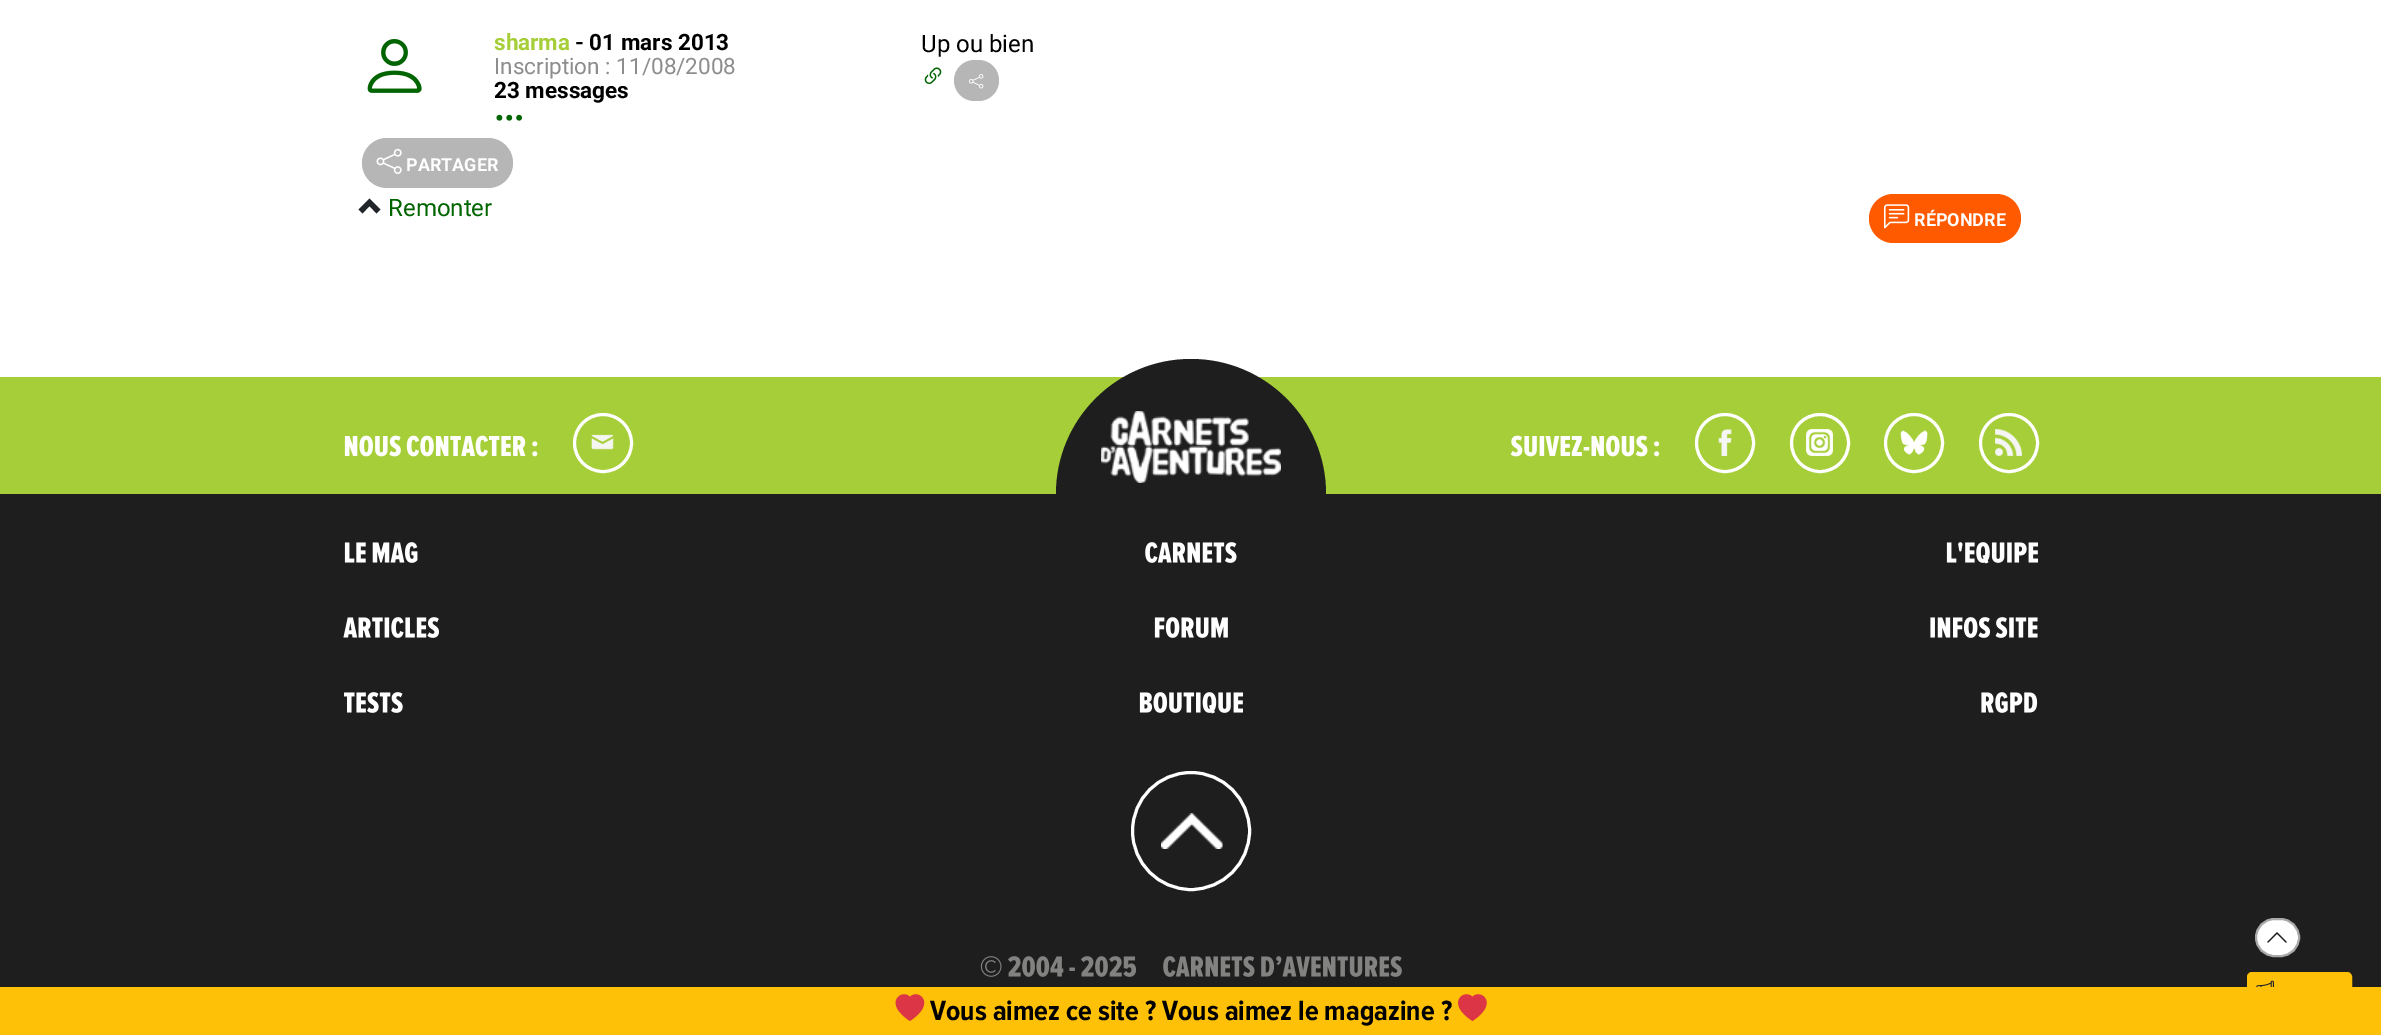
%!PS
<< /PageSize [2381 1035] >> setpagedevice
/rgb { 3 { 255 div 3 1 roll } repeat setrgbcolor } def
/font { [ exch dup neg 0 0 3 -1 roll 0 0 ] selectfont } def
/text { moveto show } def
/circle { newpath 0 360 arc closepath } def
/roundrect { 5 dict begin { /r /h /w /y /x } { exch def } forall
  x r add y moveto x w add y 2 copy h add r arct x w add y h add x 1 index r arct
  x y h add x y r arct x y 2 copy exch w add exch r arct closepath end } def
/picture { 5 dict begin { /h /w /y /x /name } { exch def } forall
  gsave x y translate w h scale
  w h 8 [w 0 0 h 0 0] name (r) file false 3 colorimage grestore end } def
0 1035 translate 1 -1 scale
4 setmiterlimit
255 255 255 rgb
0 0 2381 1035 rectfill
(img_01.rgb) 367 39 55 54 picture
(img_02.rgb) 496 114 26 7 picture
(img_03.rgb) 924 67 18 17 picture
182 182 182 rgb
954 60 45 41 20.5 roundrect fill
(img_04.rgb) 969 74 15 15 picture
362 138 151 50 25 roundrect fill
(img_05.rgb) 376 148 26 26 picture
255 90 0 rgb
1869 194 152 49 24.5 roundrect fill
(img_06.rgb) 1884 204 26 25 picture
33 37 41 rgb
380.5 209.5 moveto -4 4 rlineto -7 -7.5 rlineto -7 7.5 rlineto -4 -4 rlineto 11 -11 rlineto closepath fill
166 206 57 rgb
0 377 2381 117 rectfill
(img_07.rgb) 344 435 194 22 picture
(img_08.rgb) 591 434 23 16 picture
255 255 255 rgb
3 setlinewidth
603 443 28.5 circle stroke
30 30 30 rgb
1191 359 moveto 74.5 0 135 60.5 135 135 rcurveto -270 0 rlineto 0 -74.5 60.5 -135 135 -135 rcurveto closepath fill
(img_09.rgb) 1101 411 180 72 picture
(img_10.rgb) 1510 435 150 22 picture
(img_11.rgb) 1718 429 14 27 picture
255 255 255 rgb
1725 443 28.5 circle stroke
(img_12.rgb) 1806 429 27 27 picture
1820 443 28.5 circle stroke
(img_13.rgb) 1900 430 28 25 picture
1914 443 28.5 circle stroke
(img_14.rgb) 1995 429 27 27 picture
2009 443 28.5 circle stroke
30 30 30 rgb
0 494 2381 493 rectfill
(img_15.rgb) 344 542 74 21 picture
(img_16.rgb) 343 617 96 21 picture
(img_17.rgb) 344 692 59 21 picture
(img_18.rgb) 1145 542 92 21 picture
(img_19.rgb) 1154 617 74 21 picture
(img_20.rgb) 1139 692 104 22 picture
(img_21.rgb) 1946 542 92 22 picture
(img_22.rgb) 1930 617 108 21 picture
(img_23.rgb) 1981 692 57 21 picture
(img_24.rgb) 1161 813 62 36 picture
255 255 255 rgb
1191 831 58.5 circle stroke
(img_25.rgb) 980 956 156 21 picture
(img_26.rgb) 1163 956 239 21 picture
2256 919 43 37 18.5 roundrect gsave fill grestore
169 169 169 rgb
2 setlinewidth
stroke
(img_27.rgb) 2267 932 20 11 picture
255 193 7 rgb
2248 973 103 31 4 roundrect gsave fill grestore
stroke
(img_28.rgb) 2256 980 18 7 picture
0 987 2381 48 rectfill
(img_29.rgb) 895 994 30 28 picture
(img_30.rgb) 1458 994 29 28 picture
/Roboto-Bold 22.5 font
166 206 57 rgb
(sharma) 494 50 text
0 0 0 rgb
(- 01 mars 2013) 575 50 text
/Roboto-Regular 22.5 font
141 141 141 rgb
(Inscription : 11/08/2008) 494 74 text
/Roboto-Bold 22.5 font
0 0 0 rgb
(23 messages) 494 98 text
/Roboto-Regular 24 font
(Up ou bien) 921 52 text
/Roboto-Bold 18 font
255 255 255 rgb
(PARTAGER) 406 171 text
(RÉPONDRE) 1914 226 text
/Roboto-Regular 24 font
0 100 0 rgb
(Remonter) 388 216 text
/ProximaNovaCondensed-Bold 28.75 font
0 0 0 rgb
(Vous aimez ce site ? Vous aimez le magazine ?) 930 1020 text
showpage
